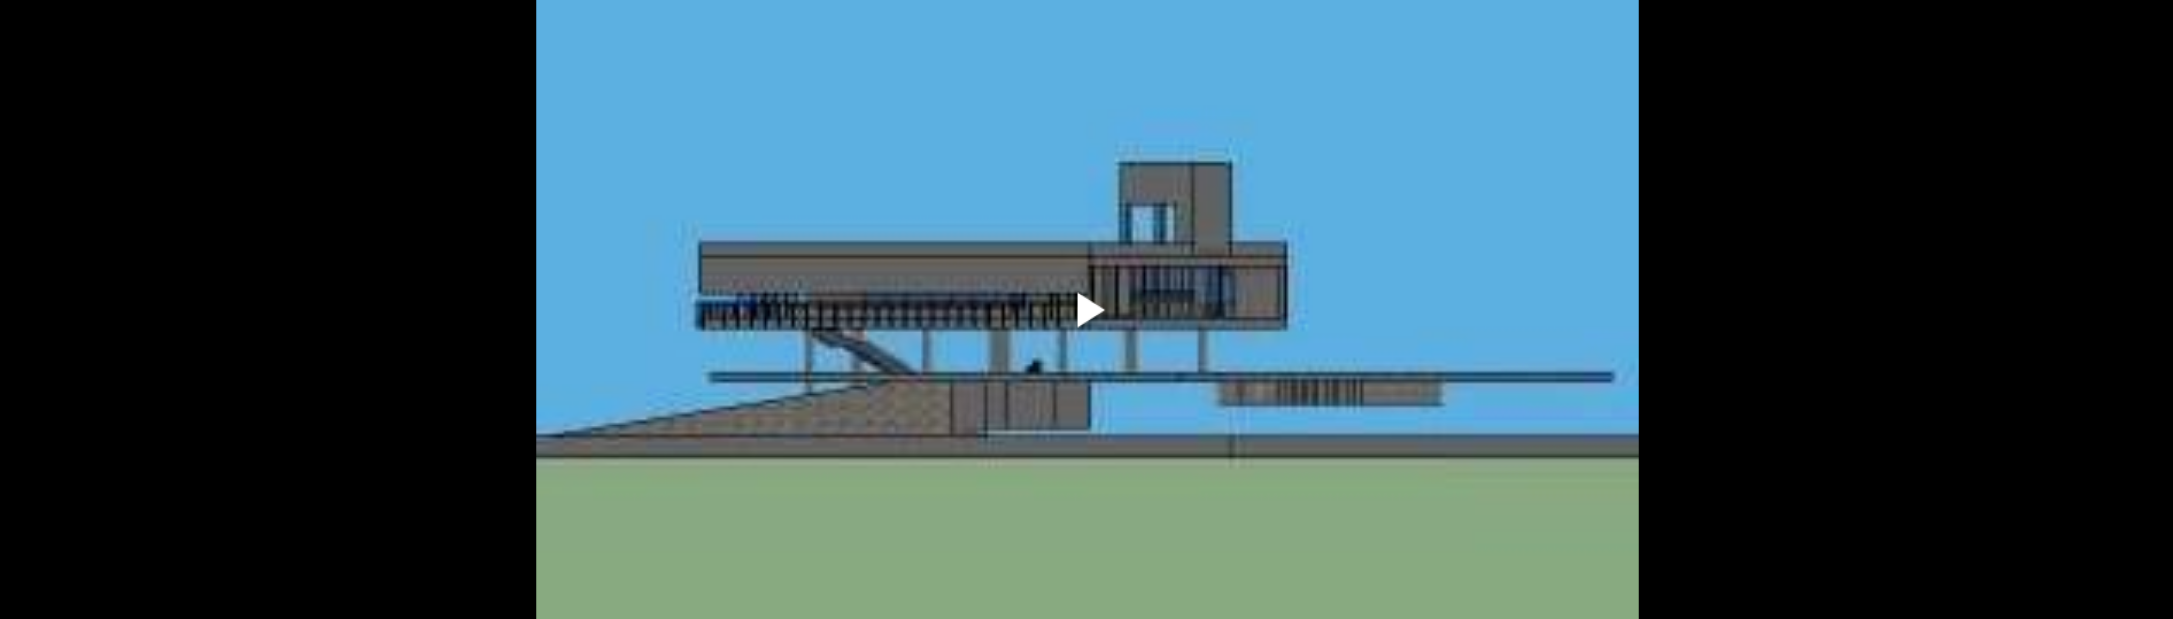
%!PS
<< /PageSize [2173 619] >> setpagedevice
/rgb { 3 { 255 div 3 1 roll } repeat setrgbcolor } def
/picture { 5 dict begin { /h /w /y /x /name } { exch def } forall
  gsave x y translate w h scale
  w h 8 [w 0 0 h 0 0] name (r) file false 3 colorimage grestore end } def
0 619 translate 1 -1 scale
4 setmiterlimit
0 0 0 rgb
0 0 2173 619 rectfill
(img_01.rgb) 536 0 1103 619 picture
(img_02.rgb) 1077 292 29 36 picture
showpage
